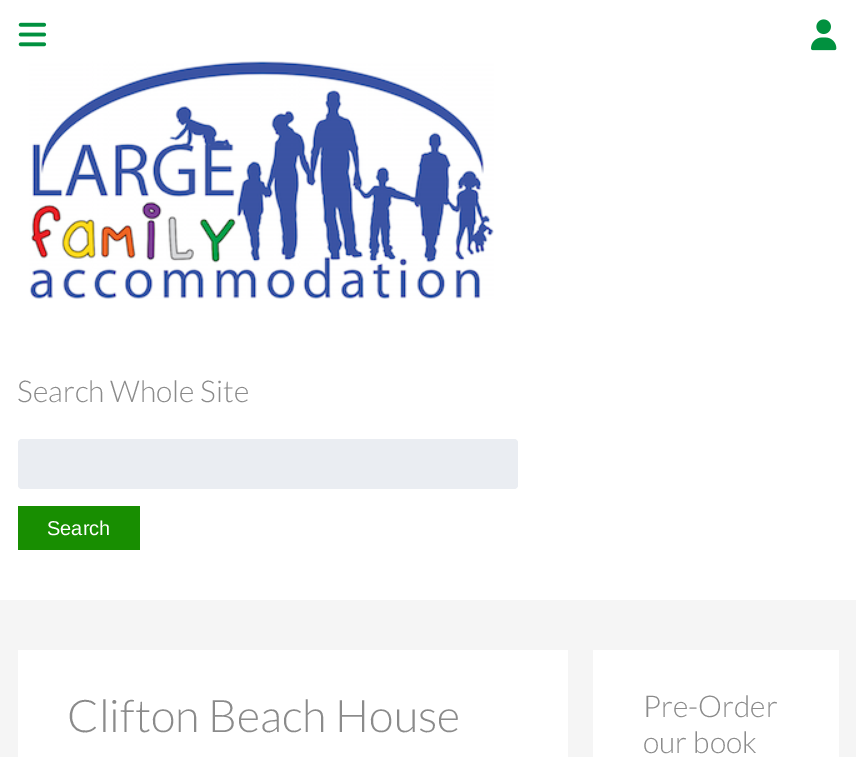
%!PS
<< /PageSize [856 757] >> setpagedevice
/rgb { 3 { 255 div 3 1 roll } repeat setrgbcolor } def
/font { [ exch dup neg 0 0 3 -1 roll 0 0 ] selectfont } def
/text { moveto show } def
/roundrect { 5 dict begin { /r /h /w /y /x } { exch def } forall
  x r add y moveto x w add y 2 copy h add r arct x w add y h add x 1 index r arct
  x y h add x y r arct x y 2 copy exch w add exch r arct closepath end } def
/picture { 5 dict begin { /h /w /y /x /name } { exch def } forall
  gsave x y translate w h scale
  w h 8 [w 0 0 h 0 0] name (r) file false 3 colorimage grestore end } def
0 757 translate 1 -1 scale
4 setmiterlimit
245 245 245 rgb
0 0 856 757 rectfill
255 255 255 rgb
0 0 856 600 rectfill
(img_01.rgb) 18 22 29 25 picture
(img_02.rgb) 811 19 26 32 picture
(img_03.rgb) 29 61 465 238 picture
234 237 242 rgb
18 439 500 50 4 roundrect fill
24 142 1 rgb
18 506 122 44 rectfill
255 255 255 rgb
18 650 550 107 rectfill
593 650 246 107 rectfill
/Lato-Light 30 font
139 139 139 rgb
(Search Whole Site) 17 402 text
/LiberationSans-Regular 20 font
255 255 255 rgb
(Search) 47 535 text
/Lato-Light 45 font
139 139 139 rgb
(Clifton Beach House) 67 732 text
/Lato-Light 30 font
(Pre-Order) 643 717 text
(our book) 643 753 text
showpage
